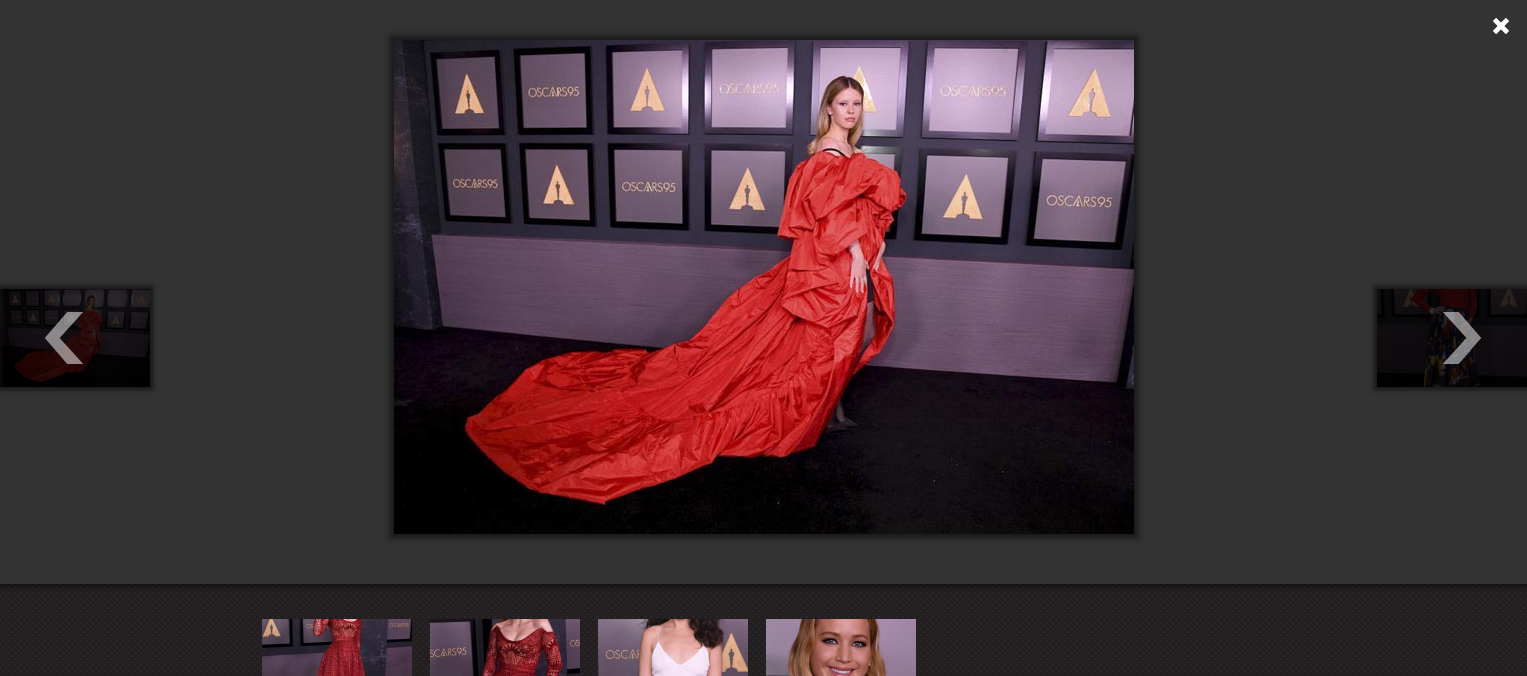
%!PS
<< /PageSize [1527 676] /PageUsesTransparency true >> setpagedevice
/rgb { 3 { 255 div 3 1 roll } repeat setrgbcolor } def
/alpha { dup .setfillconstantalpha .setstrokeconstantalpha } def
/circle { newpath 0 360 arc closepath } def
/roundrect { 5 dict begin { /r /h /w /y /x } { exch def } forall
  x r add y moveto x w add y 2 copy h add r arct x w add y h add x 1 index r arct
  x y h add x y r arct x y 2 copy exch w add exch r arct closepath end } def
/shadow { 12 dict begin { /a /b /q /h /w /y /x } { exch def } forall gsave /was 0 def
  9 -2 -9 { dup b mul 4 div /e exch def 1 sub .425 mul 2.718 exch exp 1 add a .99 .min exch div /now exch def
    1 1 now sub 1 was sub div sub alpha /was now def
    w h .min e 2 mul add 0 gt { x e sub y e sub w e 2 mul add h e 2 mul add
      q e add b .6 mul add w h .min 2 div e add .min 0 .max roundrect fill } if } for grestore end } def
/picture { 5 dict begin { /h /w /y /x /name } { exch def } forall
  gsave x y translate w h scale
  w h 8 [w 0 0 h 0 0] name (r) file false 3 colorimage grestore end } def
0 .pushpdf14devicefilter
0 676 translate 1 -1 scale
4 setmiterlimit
51 51 51 rgb
0 0 1527 676 rectfill
(img_01.rgb) 1493 18 16 16 picture
23 23 23 rgb
-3 286 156 104 0 2.5 1 shadow
(img_02.rgb) 0 289 150 98 picture
(img_03.rgb) 0 289 83 98 picture
390 36 748 502 0 3.5 1 shadow
(img_04.rgb) 394 40 740 494 picture
1374 286 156 104 0 2.5 1 shadow
(img_05.rgb) 1377 289 150 98 picture
(img_06.rgb) 1443 312 38 52 picture
(img_07.rgb) 0 584 1527 92 picture
34 34 34 rgb
245.5 667.5 2.5 circle fill
413.5 667.5 2.5 circle fill
(img_08.rgb) 262 619 150 57 picture
581.5 667.5 2.5 circle fill
(img_09.rgb) 430 619 150 57 picture
749.5 667.5 2.5 circle fill
(img_10.rgb) 598 619 150 57 picture
(img_11.rgb) 766 619 150 57 picture
.poppdf14devicefilter showpage
